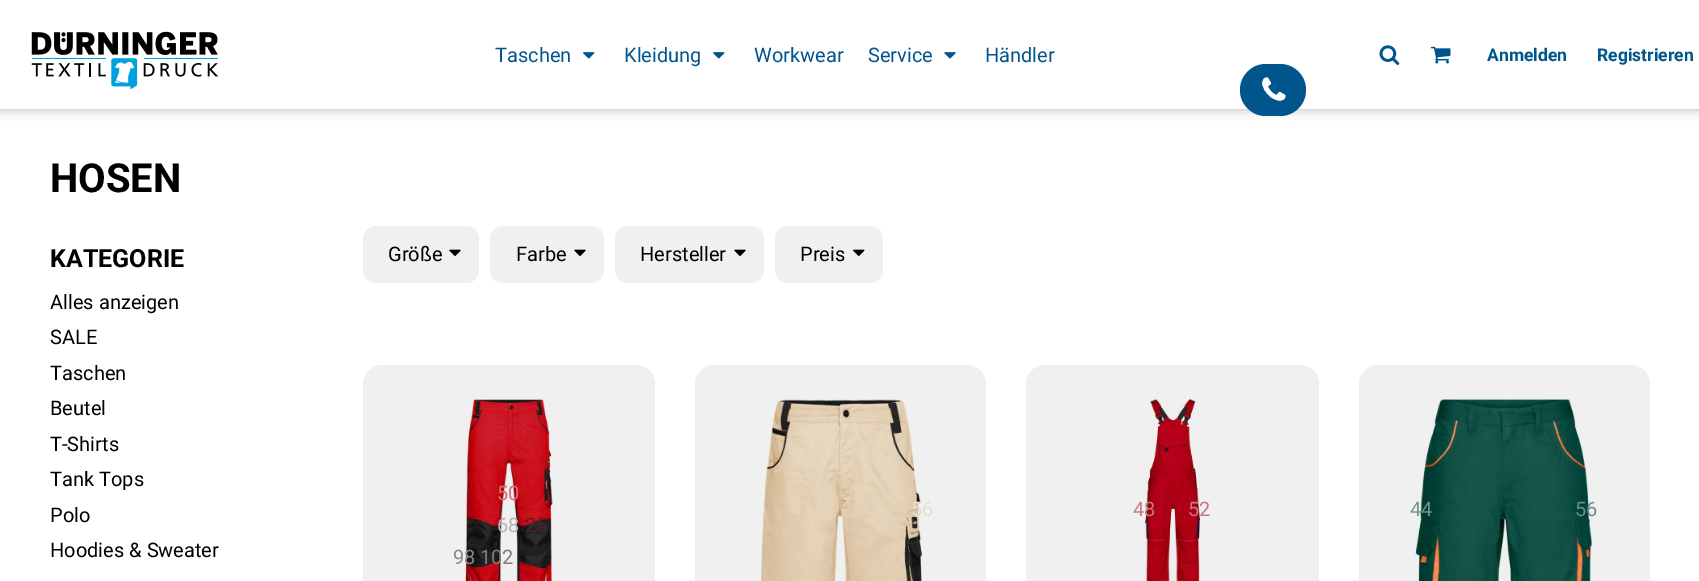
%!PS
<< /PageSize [1699 581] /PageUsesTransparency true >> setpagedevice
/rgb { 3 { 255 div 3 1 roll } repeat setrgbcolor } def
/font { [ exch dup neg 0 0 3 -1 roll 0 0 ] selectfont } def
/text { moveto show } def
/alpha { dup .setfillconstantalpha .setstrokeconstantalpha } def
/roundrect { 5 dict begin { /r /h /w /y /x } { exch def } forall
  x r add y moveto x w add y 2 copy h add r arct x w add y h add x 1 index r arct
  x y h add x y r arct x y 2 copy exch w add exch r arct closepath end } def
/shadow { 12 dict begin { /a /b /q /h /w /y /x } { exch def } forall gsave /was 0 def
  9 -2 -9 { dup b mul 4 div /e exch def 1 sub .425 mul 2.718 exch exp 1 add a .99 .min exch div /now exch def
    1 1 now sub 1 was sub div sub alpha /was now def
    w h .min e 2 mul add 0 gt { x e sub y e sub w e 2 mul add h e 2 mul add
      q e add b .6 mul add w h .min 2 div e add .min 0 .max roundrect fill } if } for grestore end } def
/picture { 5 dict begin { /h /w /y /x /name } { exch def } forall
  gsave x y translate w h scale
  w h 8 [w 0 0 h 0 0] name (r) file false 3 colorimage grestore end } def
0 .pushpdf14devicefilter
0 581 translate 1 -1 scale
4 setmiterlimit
255 255 255 rgb
0 0 1699 581 rectfill
0 0 0 rgb
0 0 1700 109 0 6 0.3 shadow
255 255 255 rgb
0 0 1699 109 rectfill
(img_01.rgb) 31 31 188 59 picture
(img_02.rgb) 583 52 12 7 picture
(img_02.rgb) 713 52 12 7 picture
(img_03.rgb) 944 52 12 7 picture
(img_04.rgb) 1379 45 21 20 picture
(img_05.rgb) 1430 46 21 18 picture
0 85 140 rgb
1240 64 66 52 26 roundrect fill
240 240 240 rgb
363 226 116 57 13 roundrect fill
(img_06.rgb) 449 249 12 7 picture
490 226 114 57 13 roundrect fill
(img_06.rgb) 574 249 12 7 picture
615 226 149 57 13 roundrect fill
(img_06.rgb) 734 249 12 7 picture
775 226 108 57 13 roundrect fill
(img_07.rgb) 853 249 12 7 picture
382 365 moveto 254 0 rlineto 10.5 0 19 8.5 19 19 rcurveto 0 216 rlineto -292 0 rlineto 0 -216 rlineto 0 -10.5 8.5 -19 19 -19 rcurveto closepath fill
(img_08.rgb) 465 396 91 185 picture
714 365 moveto 253 0 rlineto 10.5 0 19 8.5 19 19 rcurveto 0 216 rlineto -291 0 rlineto 0 -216 rlineto 0 -10.5 8.5 -19 19 -19 rcurveto closepath fill
(img_09.rgb) 760 398 162 183 picture
1045 365 moveto 255 0 rlineto 10.5 0 19 8.5 19 19 rcurveto 0 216 rlineto -293 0 rlineto 0 -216 rlineto 0 -10.5 8.5 -19 19 -19 rcurveto closepath fill
(img_10.rgb) 1142 397 59 184 picture
1378 365 moveto 253 0 rlineto 10.5 0 19 8.5 19 19 rcurveto 0 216 rlineto -291 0 rlineto 0 -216 rlineto 0 -10.5 8.5 -19 19 -19 rcurveto closepath fill
(img_11.rgb) 1415 398 180 183 picture
/Roboto-Regular 20 font
0 85 140 rgb
(Taschen) 495 62 text
(Kleidung) 624 62 text
(Workwear) 754 62 text
(Service) 868 62 text
(Händler) 985 62 text
/Roboto-Bold 17.5 font
(Anmelden) 1487 61 text
(Registrieren) 1597 61 text
/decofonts-Bold 29 font
255 255 255 rgb
(;) 1259 105 text
/Roboto-Bold 40 font
0 0 0 rgb
(HOSEN) 50 192 text
/Roboto-Bold 25 font
(KATEGORIE) 50 267 text
/Roboto-Regular 20 font
(Alles anzeigen) 50 309 text
(SALE) 50 344 text
(Taschen) 50 380 text
(Beutel) 50 415 text
(T-Shirts) 50 451 text
(Tank Tops) 50 486 text
(Polo) 50 522 text
(Hoodies & Sweater) 50 557 text
(Größe) 388 261 text
(Farbe) 516 261 text
(Hersteller) 640 261 text
(Preis) 800 261 text
207 115 120 rgb
(50) 497 500 text
190 175 176 rgb
(68) 497 532 text
89 30 33 rgb
(25) 525 532 text
141 134 135 rgb
(98) 453 564 text
131 121 121 rgb
(102) 480 564 text
229 222 213 rgb
(56) 911 516 text
197 121 128 rgb
(48) 1133 516 text
(52) 1188 516 text
117 148 142 rgb
(44) 1410 516 text
105 141 136 rgb
(56) 1575 516 text
.poppdf14devicefilter showpage
